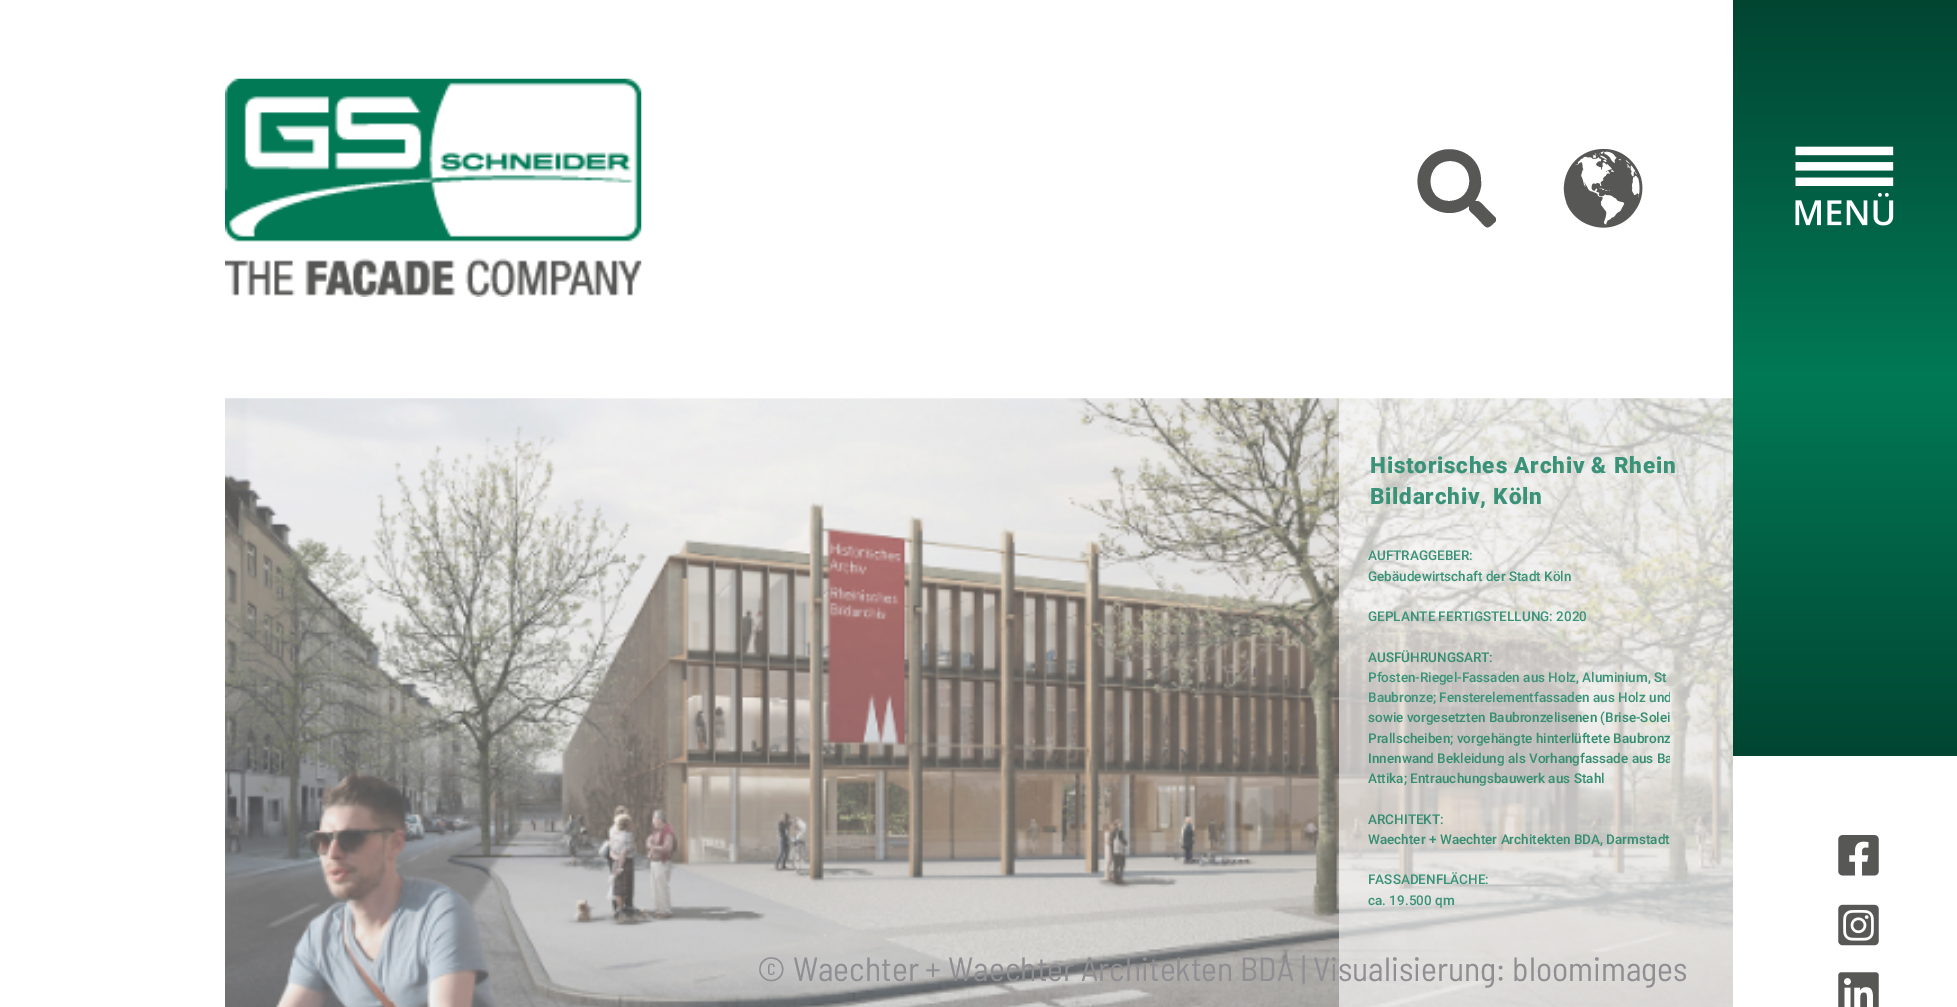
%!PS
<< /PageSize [1957 1007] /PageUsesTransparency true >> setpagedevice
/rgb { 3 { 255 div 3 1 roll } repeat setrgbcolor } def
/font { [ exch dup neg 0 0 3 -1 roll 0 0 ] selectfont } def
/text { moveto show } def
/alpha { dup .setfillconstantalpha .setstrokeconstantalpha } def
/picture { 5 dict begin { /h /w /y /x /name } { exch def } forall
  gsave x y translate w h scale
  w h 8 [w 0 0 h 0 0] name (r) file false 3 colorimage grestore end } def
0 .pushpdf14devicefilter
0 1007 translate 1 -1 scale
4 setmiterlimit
255 255 255 rgb
0 0 1957 1007 rectfill
(img_01.rgb) 225 78 417 219 picture
87 87 86 rgb
1495 217 moveto -10 -10 rlineto -5 -5 -5 -6 -10 -6 rcurveto 4 -6 7 -13 6 -20 rcurveto 0 -35 -47 -44 -61 -12 rcurveto -4 9 -3 20 2 29 rcurveto 10 16 33 20 47 8 rcurveto 0 5 0 4 4 8 rcurveto 5 5 rlineto 8 8 8 12 16 4 rcurveto 2 -1 3 -4 1 -6 rcurveto closepath 1449 201 moveto -25 0 -25 -40 1 -40 rcurveto 26 0 26 40 -1 40 rcurveto closepath fill
(img_02.rgb) 1563 148 80 80 picture
(img_03.rgb) 225 398 1508 609 picture
0.6 alpha
255 255 255 rgb
1339 398 394 609 rectfill
1 alpha
gsave 1733 0 moveto 224 0 rlineto 0 756 rlineto -224 0 rlineto closepath clip newpath
<< /ShadingType 2 /ColorSpace /DeviceRGB /Coords [1845 756 1845 0] /Extend [true true] /Function << /FunctionType 3 /Domain [0 1] /Functions [<< /FunctionType 2 /Domain [0 1] /C0 [0.004 0.271 0.192] /C1 [0.004 0.475 0.333] /N 1 >> << /FunctionType 2 /Domain [0 1] /C0 [0.004 0.475 0.333] /C1 [0.004 0.271 0.192] /N 1 >>] /Bounds [0.5] /Encode [0 1 0 1] >> >> shfill grestore
(img_04.rgb) 1795 146 99 80 picture
(img_05.rgb) 1838 835 41 41 picture
(img_06.rgb) 1838 904 41 42 picture
(img_07.rgb) 1838 972 41 35 picture
/Roboto-Black 22.5 font
58 147 120 rgb
1370 473 moveto 0.8 0 (Historisches Archiv & Rhein) ashow
1370 504 moveto 0.8 0 (Bildarchiv, Köln) ashow
/Roboto-Medium 13.5 font
(AUFTRAGGEBER:) 1368 560 text
(Gebäudewirtschaft der Stadt Köln) 1368 581 text
(GEPLANTE FERTIGSTELLUNG: 2020) 1368 621 text
53 142 114 rgb
(AUSFÜHRUNGSART:) 1368 662 text
58 147 120 rgb
(Pfosten-Riegel-Fassaden aus Holz, Aluminium, St) 1368 682 text
gsave
1269 545 401 364 rectclip
(Baubronze; Fensterelementfassaden aus Holz und) 1368 702 text
grestore
53 142 114 rgb
(sowie vorgesetzten Baubronzelisenen \(Brise-Solei) 1368 722 text
gsave
1269 545 401 364 rectclip
(Prallscheiben; vorgehängte hinterlüftete Baubronz) 1368 743 text
(Innenwand Bekleidung als Vorhangfassade aus Ba) 1368 763 text
grestore
(Attika; Entrauchungsbauwerk aus Stahl) 1368 783 text
(ARCHITEKT:) 1368 824 text
(Waechter + Waechter Architekten BDA, Darmstadt) 1368 844 text
58 147 120 rgb
(FASSADENFLÄCHE:) 1368 884 text
(ca. 19.500 qm) 1368 905 text
/BarlowSemiCondensed-Regular 33.75 font
142 142 147 rgb
(© Waechter + Waechter Architekten BDA | Visualisierung: bloomimages) 757 981 text
.poppdf14devicefilter showpage
